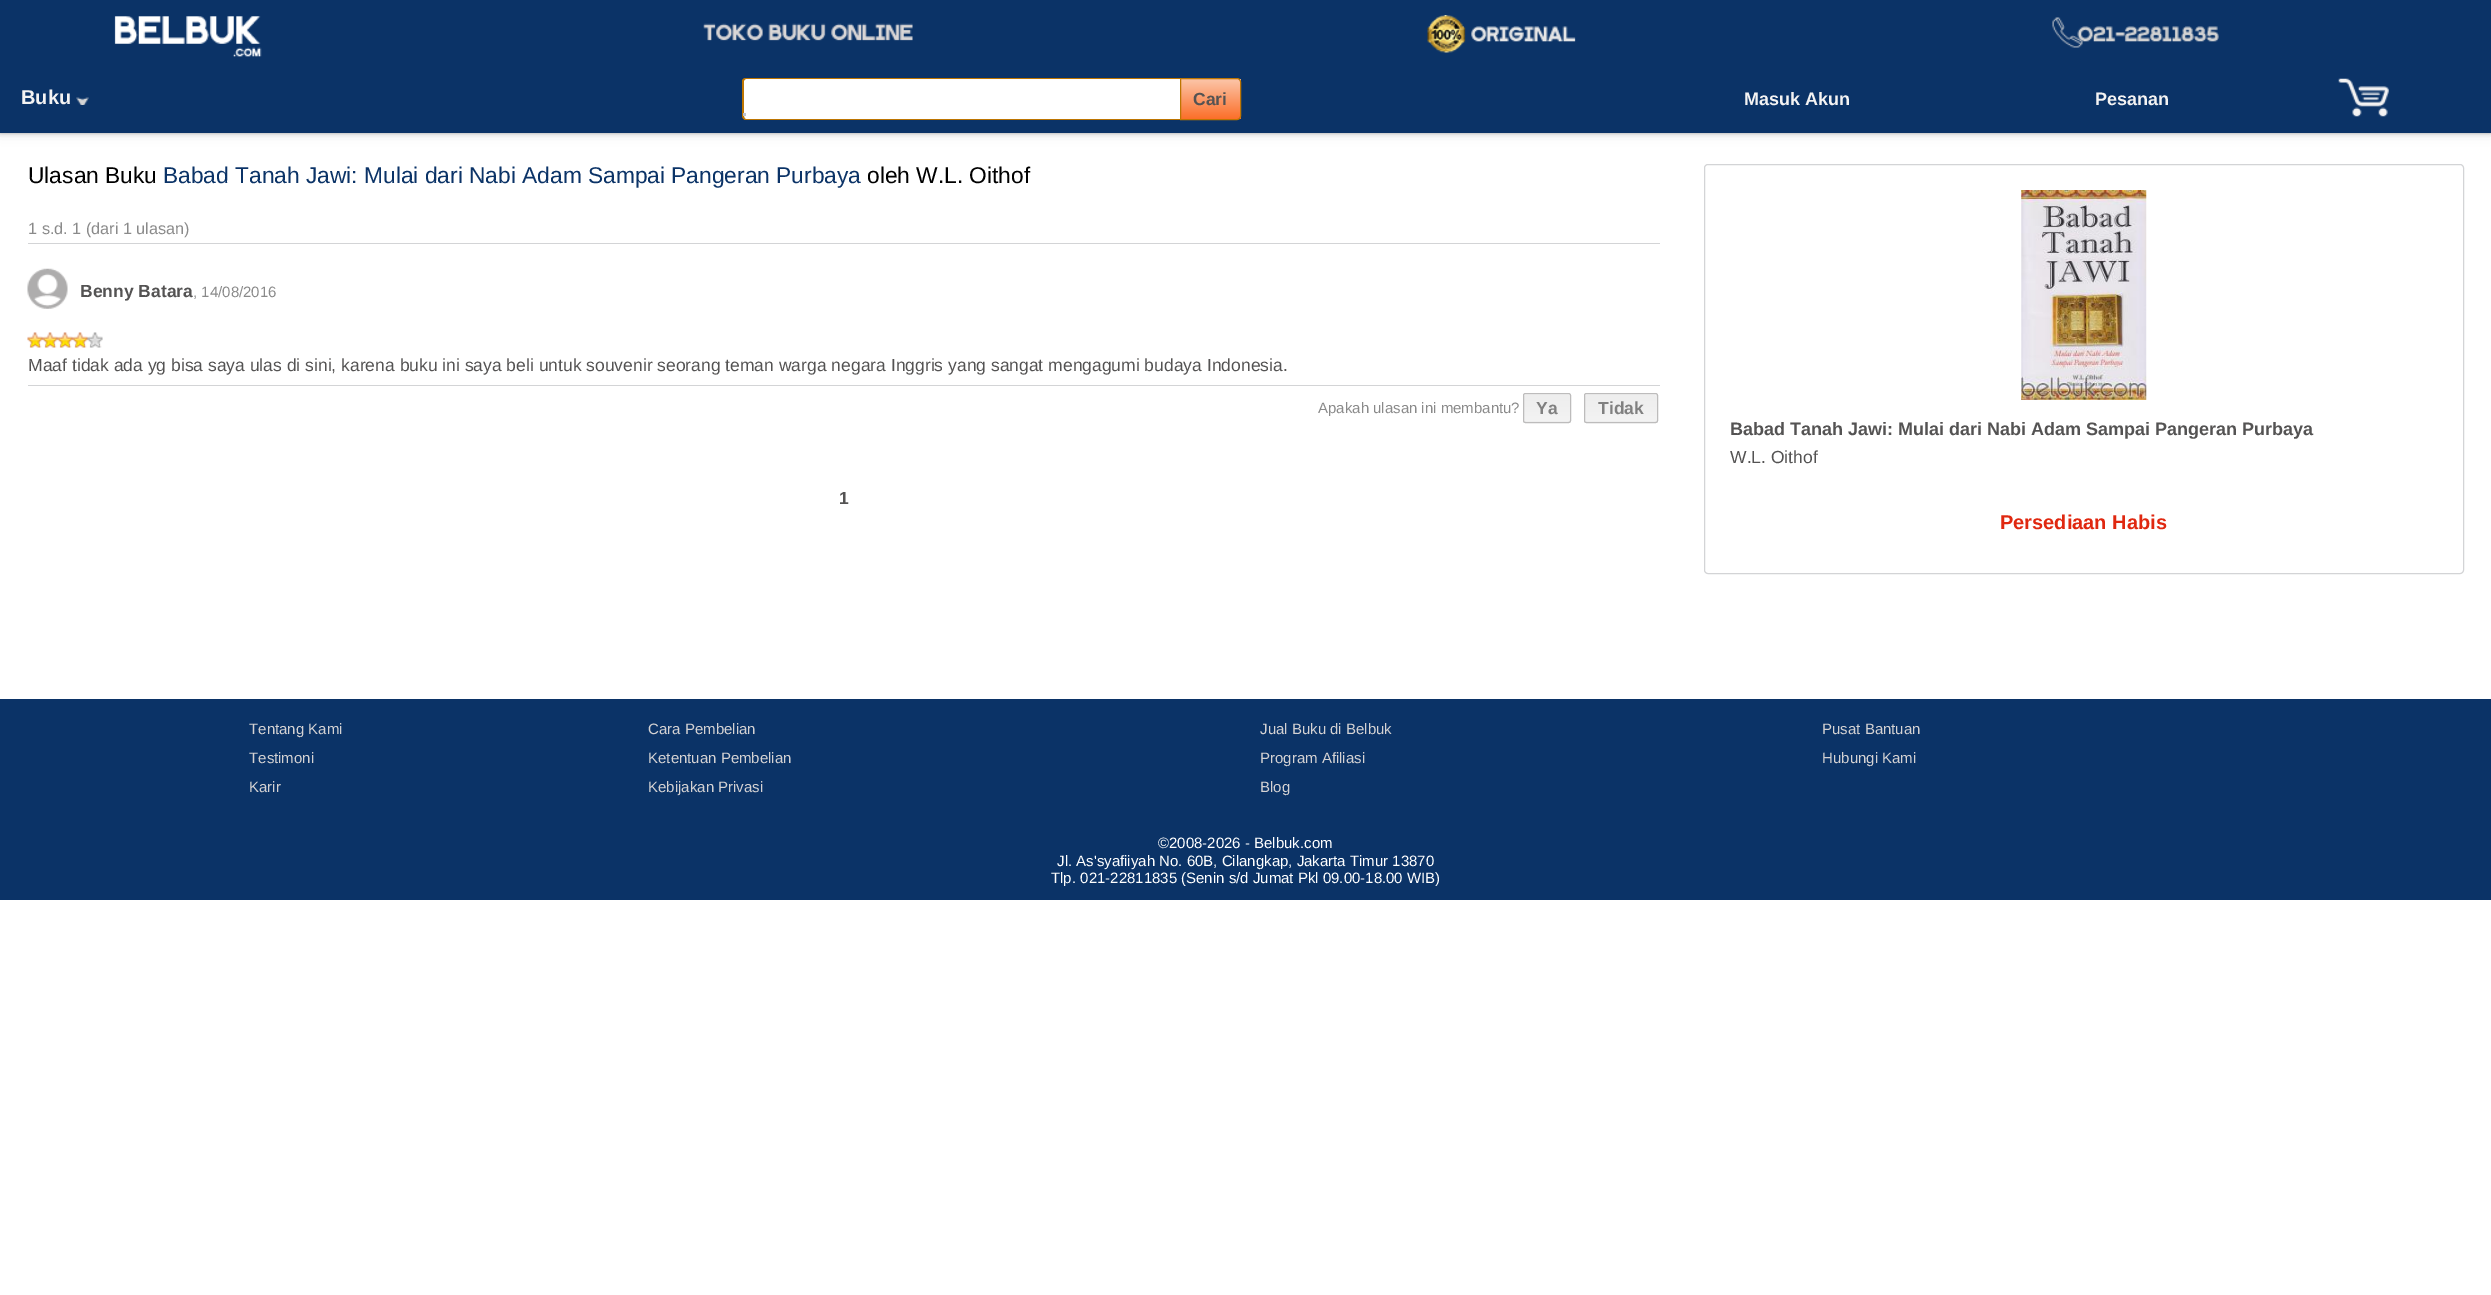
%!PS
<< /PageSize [2491 1295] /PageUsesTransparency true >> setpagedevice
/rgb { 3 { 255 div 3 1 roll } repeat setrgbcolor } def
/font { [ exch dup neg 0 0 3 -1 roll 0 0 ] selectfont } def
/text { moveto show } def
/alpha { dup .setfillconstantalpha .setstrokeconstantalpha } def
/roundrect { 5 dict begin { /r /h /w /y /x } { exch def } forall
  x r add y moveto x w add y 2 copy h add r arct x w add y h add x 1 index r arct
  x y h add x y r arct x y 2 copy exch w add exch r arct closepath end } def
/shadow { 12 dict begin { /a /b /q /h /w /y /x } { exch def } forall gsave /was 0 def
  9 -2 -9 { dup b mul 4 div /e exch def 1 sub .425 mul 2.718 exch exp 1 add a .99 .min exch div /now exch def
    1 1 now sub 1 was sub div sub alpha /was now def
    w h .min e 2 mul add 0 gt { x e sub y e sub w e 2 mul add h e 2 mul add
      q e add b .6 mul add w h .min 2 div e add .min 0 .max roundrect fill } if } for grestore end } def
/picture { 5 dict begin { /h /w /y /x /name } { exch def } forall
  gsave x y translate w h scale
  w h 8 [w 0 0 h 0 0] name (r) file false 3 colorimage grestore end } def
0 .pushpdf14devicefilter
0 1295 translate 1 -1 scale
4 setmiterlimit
255 255 255 rgb
0 0 2491 1295 rectfill
0 0 0 rgb
0 0 2491 133 0 6 0.14 shadow
0 0 2491 133 0 2 0.3 shadow
11 51 103 rgb
0 0 2491 133 rectfill
(img_01.rgb) 114 16 148 41 picture
(img_02.rgb) 703 23 210 18 picture
(img_03.rgb) 1427 15 149 38 picture
(img_04.rgb) 2052 17 167 31 picture
(img_05.rgb) 76 97 13 8 picture
255 255 255 rgb
747 78 moveto 433 0 rlineto 0 42 rlineto -433 0 rlineto -2 0 -4 -2 -4 -4 rcurveto 0 -34 rlineto 0 -2 2 -4 4 -4 rcurveto closepath fill
189 117 1 rgb
746 78 moveto 434 0 rlineto 0 42 rlineto -434 0 rlineto -2 0 -4 -2 -4 -4 rcurveto 0 -35 rlineto 0 -2 2 -3 4 -3 rcurveto closepath 746 79 moveto 434 0 rlineto 0 40 rlineto -434 0 rlineto -1 0 -2 -1 -2 -3 rcurveto 0 -35 rlineto 0 -1 1 -2 2 -2 rcurveto closepath eofill
187 195 211 rgb
743 113 3 3 rectfill
gsave
1180 78 moveto 57 0 rlineto 2 0 4 2 4 4 rcurveto 0 34 rlineto 0 2 -2 4 -4 4 rcurveto -57 0 rlineto closepath clip newpath
gsave 1181 79 moveto 60 0 rlineto 0 40 rlineto -60 0 rlineto closepath clip newpath
<< /ShadingType 2 /ColorSpace /DeviceRGB /Coords [1211 79 1211 119] /Extend [true true] /Function << /FunctionType 3 /Domain [0 1] /Functions [<< /FunctionType 2 /Domain [0 1] /C0 [0.984 0.757 0.639] /C1 [0.984 0.757 0.639] /N 1 >> << /FunctionType 2 /Domain [0 1] /C0 [0.984 0.757 0.639] /C1 [0.988 0.435 0.161] /N 1 >>] /Bounds [0.05] /Encode [0 1 0 1] >> >> shfill grestore
grestore
189 117 1 rgb
1180.5 78.5 moveto 56.5 0 rlineto 2 0 3.5 1.5 3.5 3.5 rcurveto 0 34 rlineto 0 2 -1.5 3.5 -3.5 3.5 rcurveto -56.5 0 rlineto closepath stroke
(img_06.rgb) 2338 78 51 39 picture
211 212 214 rgb
28 243 1632 1 rectfill
(img_07.rgb) 27 268 41 41 picture
(img_08.rgb) 27 332 76 16 picture
28 385 1632 1 rectfill
gsave 1523 394 moveto 48 0 rlineto 0 27 rlineto -48 0 rlineto closepath clip newpath
<< /ShadingType 2 /ColorSpace /DeviceRGB /Coords [1547 394 1547 421] /Extend [true true] /Function << /FunctionType 3 /Domain [0 1] /Functions [<< /FunctionType 2 /Domain [0 1] /C0 [0.933 0.933 0.933] /C1 [0.933 0.933 0.933] /N 1 >> << /FunctionType 2 /Domain [0 1] /C0 [0.933 0.933 0.933] /C1 [0.953 0.953 0.953] /N 1 >>] /Bounds [0.05] /Encode [0 1 0 1] >> >> shfill grestore
gsave
1523 393 48 30 2.5 roundrect clip newpath
gsave 1523 421 moveto 48 0 rlineto 0 2 rlineto -48 0 rlineto closepath clip newpath
<< /ShadingType 2 /ColorSpace /DeviceRGB /Coords [1547 421 1547 449] /Extend [true true] /Function << /FunctionType 3 /Domain [0 1] /Functions [<< /FunctionType 2 /Domain [0 1] /C0 [0.933 0.933 0.933] /C1 [0.933 0.933 0.933] /N 1 >> << /FunctionType 2 /Domain [0 1] /C0 [0.933 0.933 0.933] /C1 [0.953 0.953 0.953] /N 1 >>] /Bounds [0.05] /Encode [0 1 0 1] >> >> shfill grestore
grestore
246 246 246 rgb
1525 395 moveto 44 0 rlineto 1 1 rlineto 0 -4 -4 -2 -8 -2 rcurveto -30 0 rlineto -4 0 -8 -2 -8 2 rcurveto closepath fill
189 188 188 rgb
1523.5 393.5 47 29 2 roundrect stroke
gsave 1584 394 moveto 74 0 rlineto 0 27 rlineto -74 0 rlineto closepath clip newpath
<< /ShadingType 2 /ColorSpace /DeviceRGB /Coords [1621 394 1621 421] /Extend [true true] /Function << /FunctionType 3 /Domain [0 1] /Functions [<< /FunctionType 2 /Domain [0 1] /C0 [0.933 0.933 0.933] /C1 [0.933 0.933 0.933] /N 1 >> << /FunctionType 2 /Domain [0 1] /C0 [0.933 0.933 0.933] /C1 [0.953 0.953 0.953] /N 1 >>] /Bounds [0.05] /Encode [0 1 0 1] >> >> shfill grestore
gsave
1584 393 74 30 2.5 roundrect clip newpath
gsave 1584 421 moveto 74 0 rlineto 0 2 rlineto -74 0 rlineto closepath clip newpath
<< /ShadingType 2 /ColorSpace /DeviceRGB /Coords [1621 421 1621 449] /Extend [true true] /Function << /FunctionType 3 /Domain [0 1] /Functions [<< /FunctionType 2 /Domain [0 1] /C0 [0.933 0.933 0.933] /C1 [0.933 0.933 0.933] /N 1 >> << /FunctionType 2 /Domain [0 1] /C0 [0.933 0.933 0.933] /C1 [0.953 0.953 0.953] /N 1 >>] /Bounds [0.05] /Encode [0 1 0 1] >> >> shfill grestore
grestore
246 246 246 rgb
1586 395 moveto 69 0 rlineto 1 1 rlineto 0 -1 0 -2 -1 -2 rcurveto -57 0 rlineto -6 0 -13 -3 -13 2 rcurveto closepath fill
189 188 188 rgb
1584.5 393.5 73 29 2 roundrect stroke
211 212 214 rgb
1704.5 164.5 759 409 3.5 roundrect stroke
(img_09.rgb) 2021 190 126 210 picture
11 51 103 rgb
0 699 2491 201 rectfill
/LiberationSans-Bold 20 font
244 243 243 rgb
(Buku) 21 104 text
/LiberationSans-Bold 17.5 font
84 83 83 rgb
(Cari) 1193 105 text
/LiberationSans-Bold 18 font
244 243 243 rgb
(Masuk Akun) 1744 105 text
(Pesanan) 2095 105 text
/LiberationSans-Regular 22.75 font
0 0 0 rgb
(Ulasan Buku) 28 183 text
11 51 103 rgb
(Babad Tanah Jawi: Mulai dari Nabi Adam Sampai Pangeran Purbaya) 163 183 text
0 0 0 rgb
(oleh W.L. Oithof) 867 183 text
/LiberationSans-Regular 16.25 font
138 138 138 rgb
(1 s.d. 1 \(dari 1 ulasan\)) 28 234 text
/LiberationSans-Bold 17.5 font
84 83 83 rgb
(Benny Batara) 80 297 text
/LiberationSans-Regular 15 font
138 138 138 rgb
(, 14/08/2016) 193 297 text
/LiberationSans-Regular 17.5 font
84 83 83 rgb
(Maaf tidak ada yg bisa saya ulas di sini, karena buku ini saya beli untuk souvenir seorang teman warga negara Inggris yang sangat mengagumi budaya Indonesia.) 28 371 text
/LiberationSans-Regular 15 font
138 138 138 rgb
(Apakah ulasan ini membantu?) 1318 413 text
/LiberationSans-Bold 17.5 font
128 128 128 rgb
(Ya) 1536 414 text
(Tidak) 1598 414 text
84 83 83 rgb
(1) 839 504 text
/LiberationSans-Bold 18 font
(Babad Tanah Jawi: Mulai dari Nabi Adam Sampai Pangeran Purbaya) 1730 435 text
/LiberationSans-Regular 17.5 font
(W.L. Oithof) 1730 463 text
/LiberationSans-Bold 20 font
224 40 16 rgb
(Persediaan Habis) 2000 529 text
/LiberationSans-Regular 15 font
212 210 211 rgb
(Tentang Kami) 249 734 text
(Testimoni) 249 763 text
(Karir) 249 792 text
(Cara Pembelian) 648 734 text
(Ketentuan Pembelian) 648 763 text
(Kebijakan Privasi) 648 792 text
(Jual Buku di Belbuk) 1260 734 text
(Program Afiliasi) 1260 763 text
(Blog) 1260 792 text
(Pusat Bantuan) 1822 734 text
(Hubungi Kami) 1822 763 text
255 255 255 rgb
(©2008-2026 - Belbuk.com) 1158 848 text
(Jl. As'syafiiyah No. 60B, Cilangkap, Jakarta Timur 13870) 1057 866 text
(Tlp. 021-22811835 \(Senin s/d Jumat Pkl 09.00-18.00 WIB\)) 1051 883 text
.poppdf14devicefilter showpage
